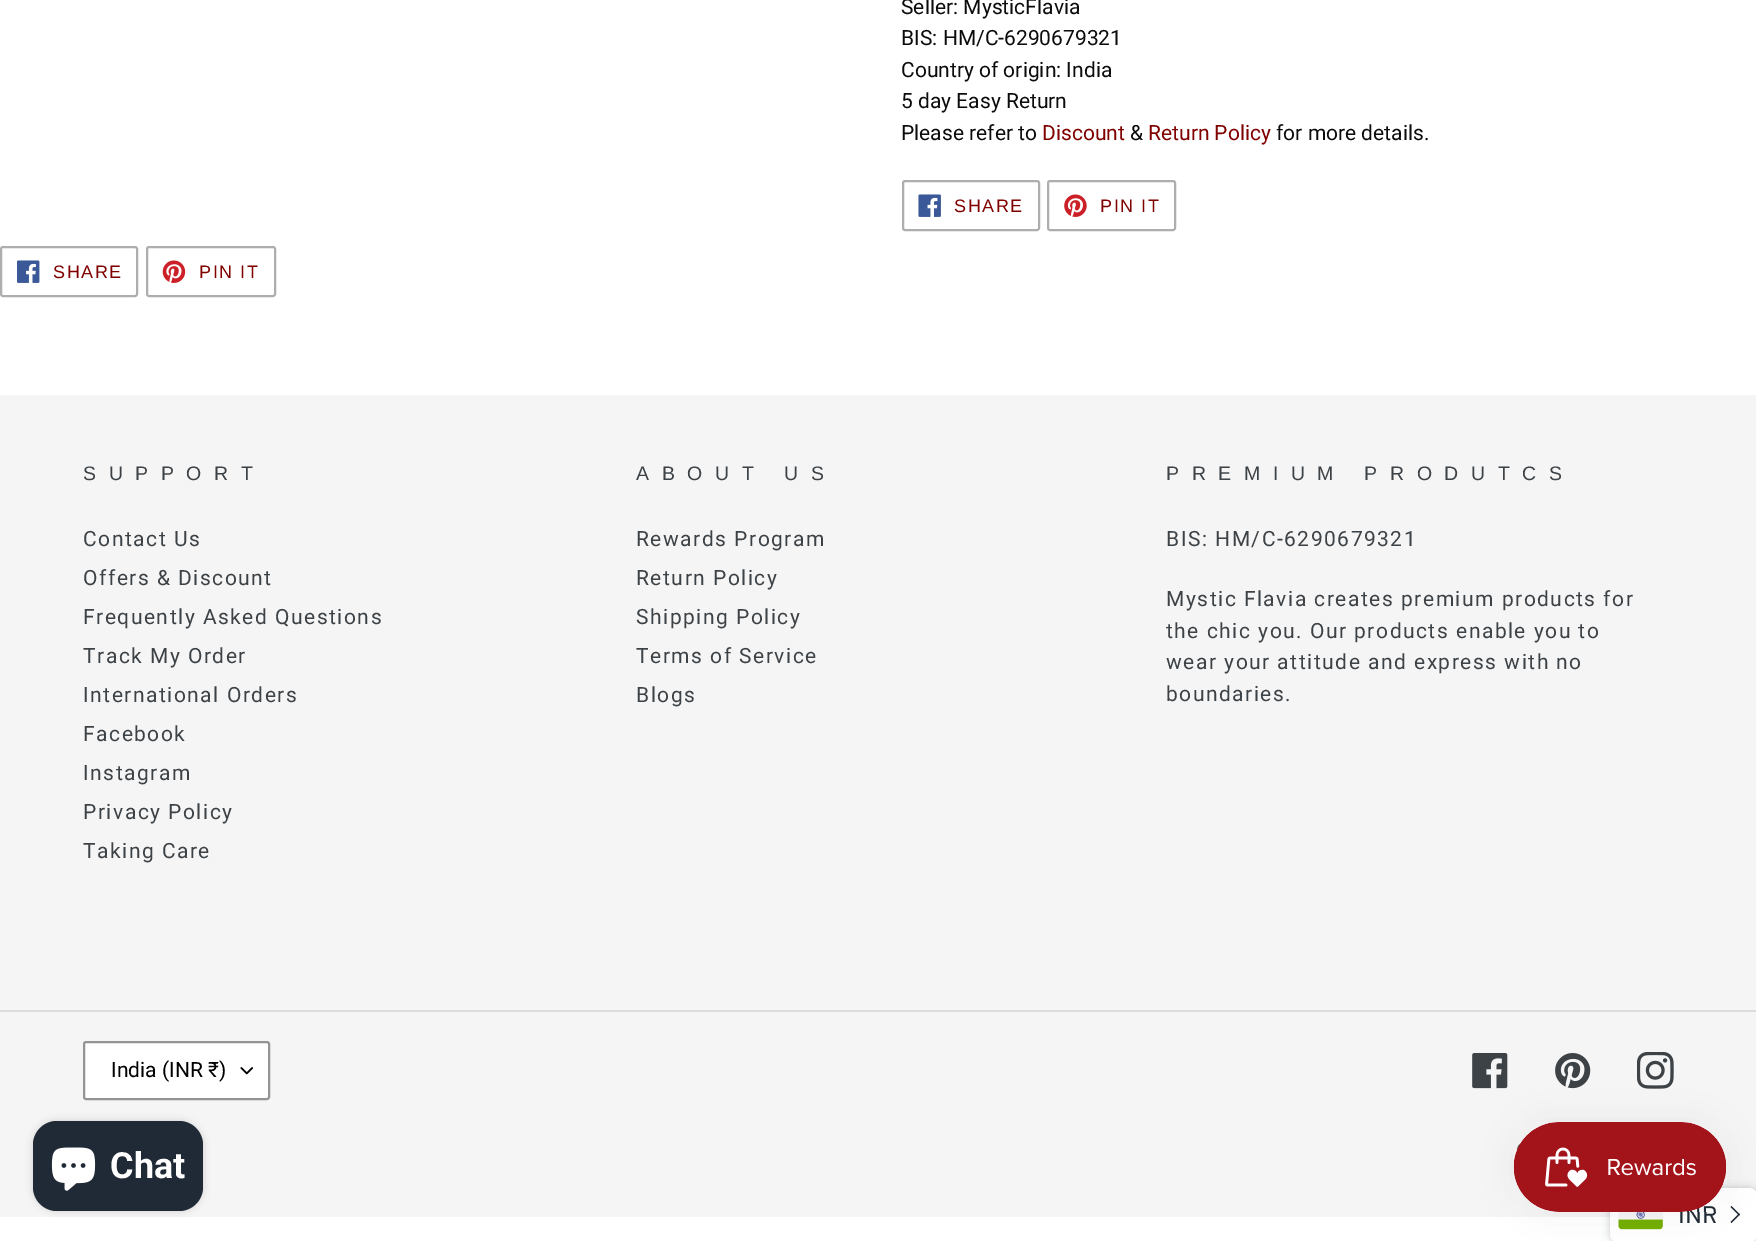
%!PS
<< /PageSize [1756 1241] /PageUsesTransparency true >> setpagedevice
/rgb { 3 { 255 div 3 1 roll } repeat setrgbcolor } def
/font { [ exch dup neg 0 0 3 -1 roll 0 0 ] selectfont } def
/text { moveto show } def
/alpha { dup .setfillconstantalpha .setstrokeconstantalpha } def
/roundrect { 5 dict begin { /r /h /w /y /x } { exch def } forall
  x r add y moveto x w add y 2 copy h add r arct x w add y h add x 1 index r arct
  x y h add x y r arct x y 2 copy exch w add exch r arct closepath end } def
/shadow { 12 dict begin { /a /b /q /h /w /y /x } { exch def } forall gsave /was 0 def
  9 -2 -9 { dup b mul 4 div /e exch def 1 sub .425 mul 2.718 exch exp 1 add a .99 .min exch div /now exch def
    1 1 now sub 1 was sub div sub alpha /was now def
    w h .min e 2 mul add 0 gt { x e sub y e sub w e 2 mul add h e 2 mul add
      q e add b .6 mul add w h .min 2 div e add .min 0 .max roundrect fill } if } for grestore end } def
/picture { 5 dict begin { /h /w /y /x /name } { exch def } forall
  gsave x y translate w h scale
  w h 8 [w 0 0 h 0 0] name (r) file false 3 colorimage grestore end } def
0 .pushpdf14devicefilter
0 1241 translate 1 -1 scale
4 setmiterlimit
255 255 255 rgb
0 0 1756 1241 rectfill
173 174 176 rgb
2 setlinewidth
903 181 136 49 2 roundrect stroke
(img_01.rgb) 918 194 23 23 picture
1048 181 127 49 2 roundrect stroke
(img_02.rgb) 1064 194 23 23 picture
1 247 136 49 2 roundrect stroke
(img_03.rgb) 17 260 23 23 picture
147 247 128 49 2 roundrect stroke
(img_04.rgb) 162 260 24 23 picture
245 245 245 rgb
0 395 1756 822 rectfill
220 220 220 rgb
0 1010 1756 2 rectfill
255 255 255 rgb
83 1041 187 59 3 roundrect fill
(img_05.rgb) 240 1067 13 8 picture
148 148 148 rgb
84 1042 185 57 2 roundrect stroke
(img_06.rgb) 1472 1053 36 36 picture
(img_07.rgb) 1555 1053 36 36 picture
(img_08.rgb) 1637 1052 37 37 picture
0 0 0 rgb
33 1121 170 90 24 4 0.15 shadow
32 42 54 rgb
33 1121 170 90 24 roundrect fill
(img_09.rgb) 51 1147 45 44 picture
33 43 54 rgb
1610 1188 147 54 8 4 0.25 shadow
255 255 255 rgb
1610 1188 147 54 8 roundrect fill
(img_11.rgb) 1618 1212 45 18 picture
33 43 54 rgb
1730.5 1207 moveto 1 -1 rlineto 8.5 8.5 rlineto -1 1 rlineto closepath fill
1730.5 1222 moveto 8.5 -8.5 rlineto 1 1 rlineto -8.5 8.5 rlineto closepath fill
0 0 0 rgb
1514 1122 213 90 45 19 0.05 shadow
/Roboto-Regular 21 font
13 12 12 rgb
(Seller: MysticFlavia) 901 14 text
(BIS: HM/C-6290679321) 901 45 text
(Country of origin: India) 901 77 text
(5 day Easy Return) 901 108 text
(Please refer to) 901 140 text
128 0 0 rgb
(Discount) 1042 140 text
13 12 12 rgb
(&) 1130 140 text
128 0 0 rgb
(Return Policy) 1148 140 text
13 12 12 rgb
(for more details.) 1276 140 text
/LiberationSans-Regular 18 font
128 0 0 rgb
954 212 moveto 1.5 0 (SHARE) ashow
1100 212 moveto 1.5 0 (PIN IT) ashow
53 278 moveto 1.5 0 (SHARE) ashow
199 278 moveto 1.5 0 (PIN IT) ashow
/LiberationSans-Regular 19.5 font
61 66 70 rgb
83 480 moveto 12.6 0 (SUPPORT) ashow
/Roboto-Regular 21 font
83 546 moveto 1.5 0 (Contact Us) ashow
83 585 moveto 1.5 0 (Offers & Discount) ashow
83 624 moveto 1.5 0 (Frequently Asked Questions) ashow
83 663 moveto 1.5 0 (Track My Order) ashow
83 702 moveto 1.5 0 (International Orders) ashow
83 741 moveto 1.5 0 (Facebook) ashow
83 780 moveto 1.5 0 (Instagram) ashow
83 819 moveto 1.5 0 (Privacy Policy) ashow
83 858 moveto 1.5 0 (Taking Care) ashow
/LiberationSans-Regular 19.5 font
636 480 moveto 12.6 0 (ABOUT US) ashow
/Roboto-Regular 21 font
636 546 moveto 1.5 0 (Rewards Program) ashow
636 585 moveto 1.5 0 (Return Policy) ashow
636 624 moveto 1.5 0 (Shipping Policy) ashow
636 663 moveto 1.5 0 (Terms of Service) ashow
636 702 moveto 1.5 0 (Blogs) ashow
/LiberationSans-Regular 19.5 font
1166 480 moveto 12.6 0 (PREMIUM PRODUTCS) ashow
/Roboto-Regular 21 font
1166 546 moveto 1.5 0 (BIS: HM/C-6290679321) ashow
1166 606 moveto 1.5 0 (Mystic Flavia creates premium products for) ashow
1166 638 moveto 1.5 0 (the chic you. Our products enable you to) ashow
1166 669 moveto 1.5 0 (wear your attitude and express with no) ashow
1166 701 moveto 1.5 0 (boundaries.) ashow
0 0 0 rgb
(India \(INR ₹\)) 111 1077 text
/Roboto-Bold 36 font
255 255 255 rgb
(Chat) 110 1178 text
/Overpass-Regular 24 font
33 43 54 rgb
(INR) 1678 1223 text
(img_10.rgb) 1513 1122 214 90 picture
.poppdf14devicefilter showpage
